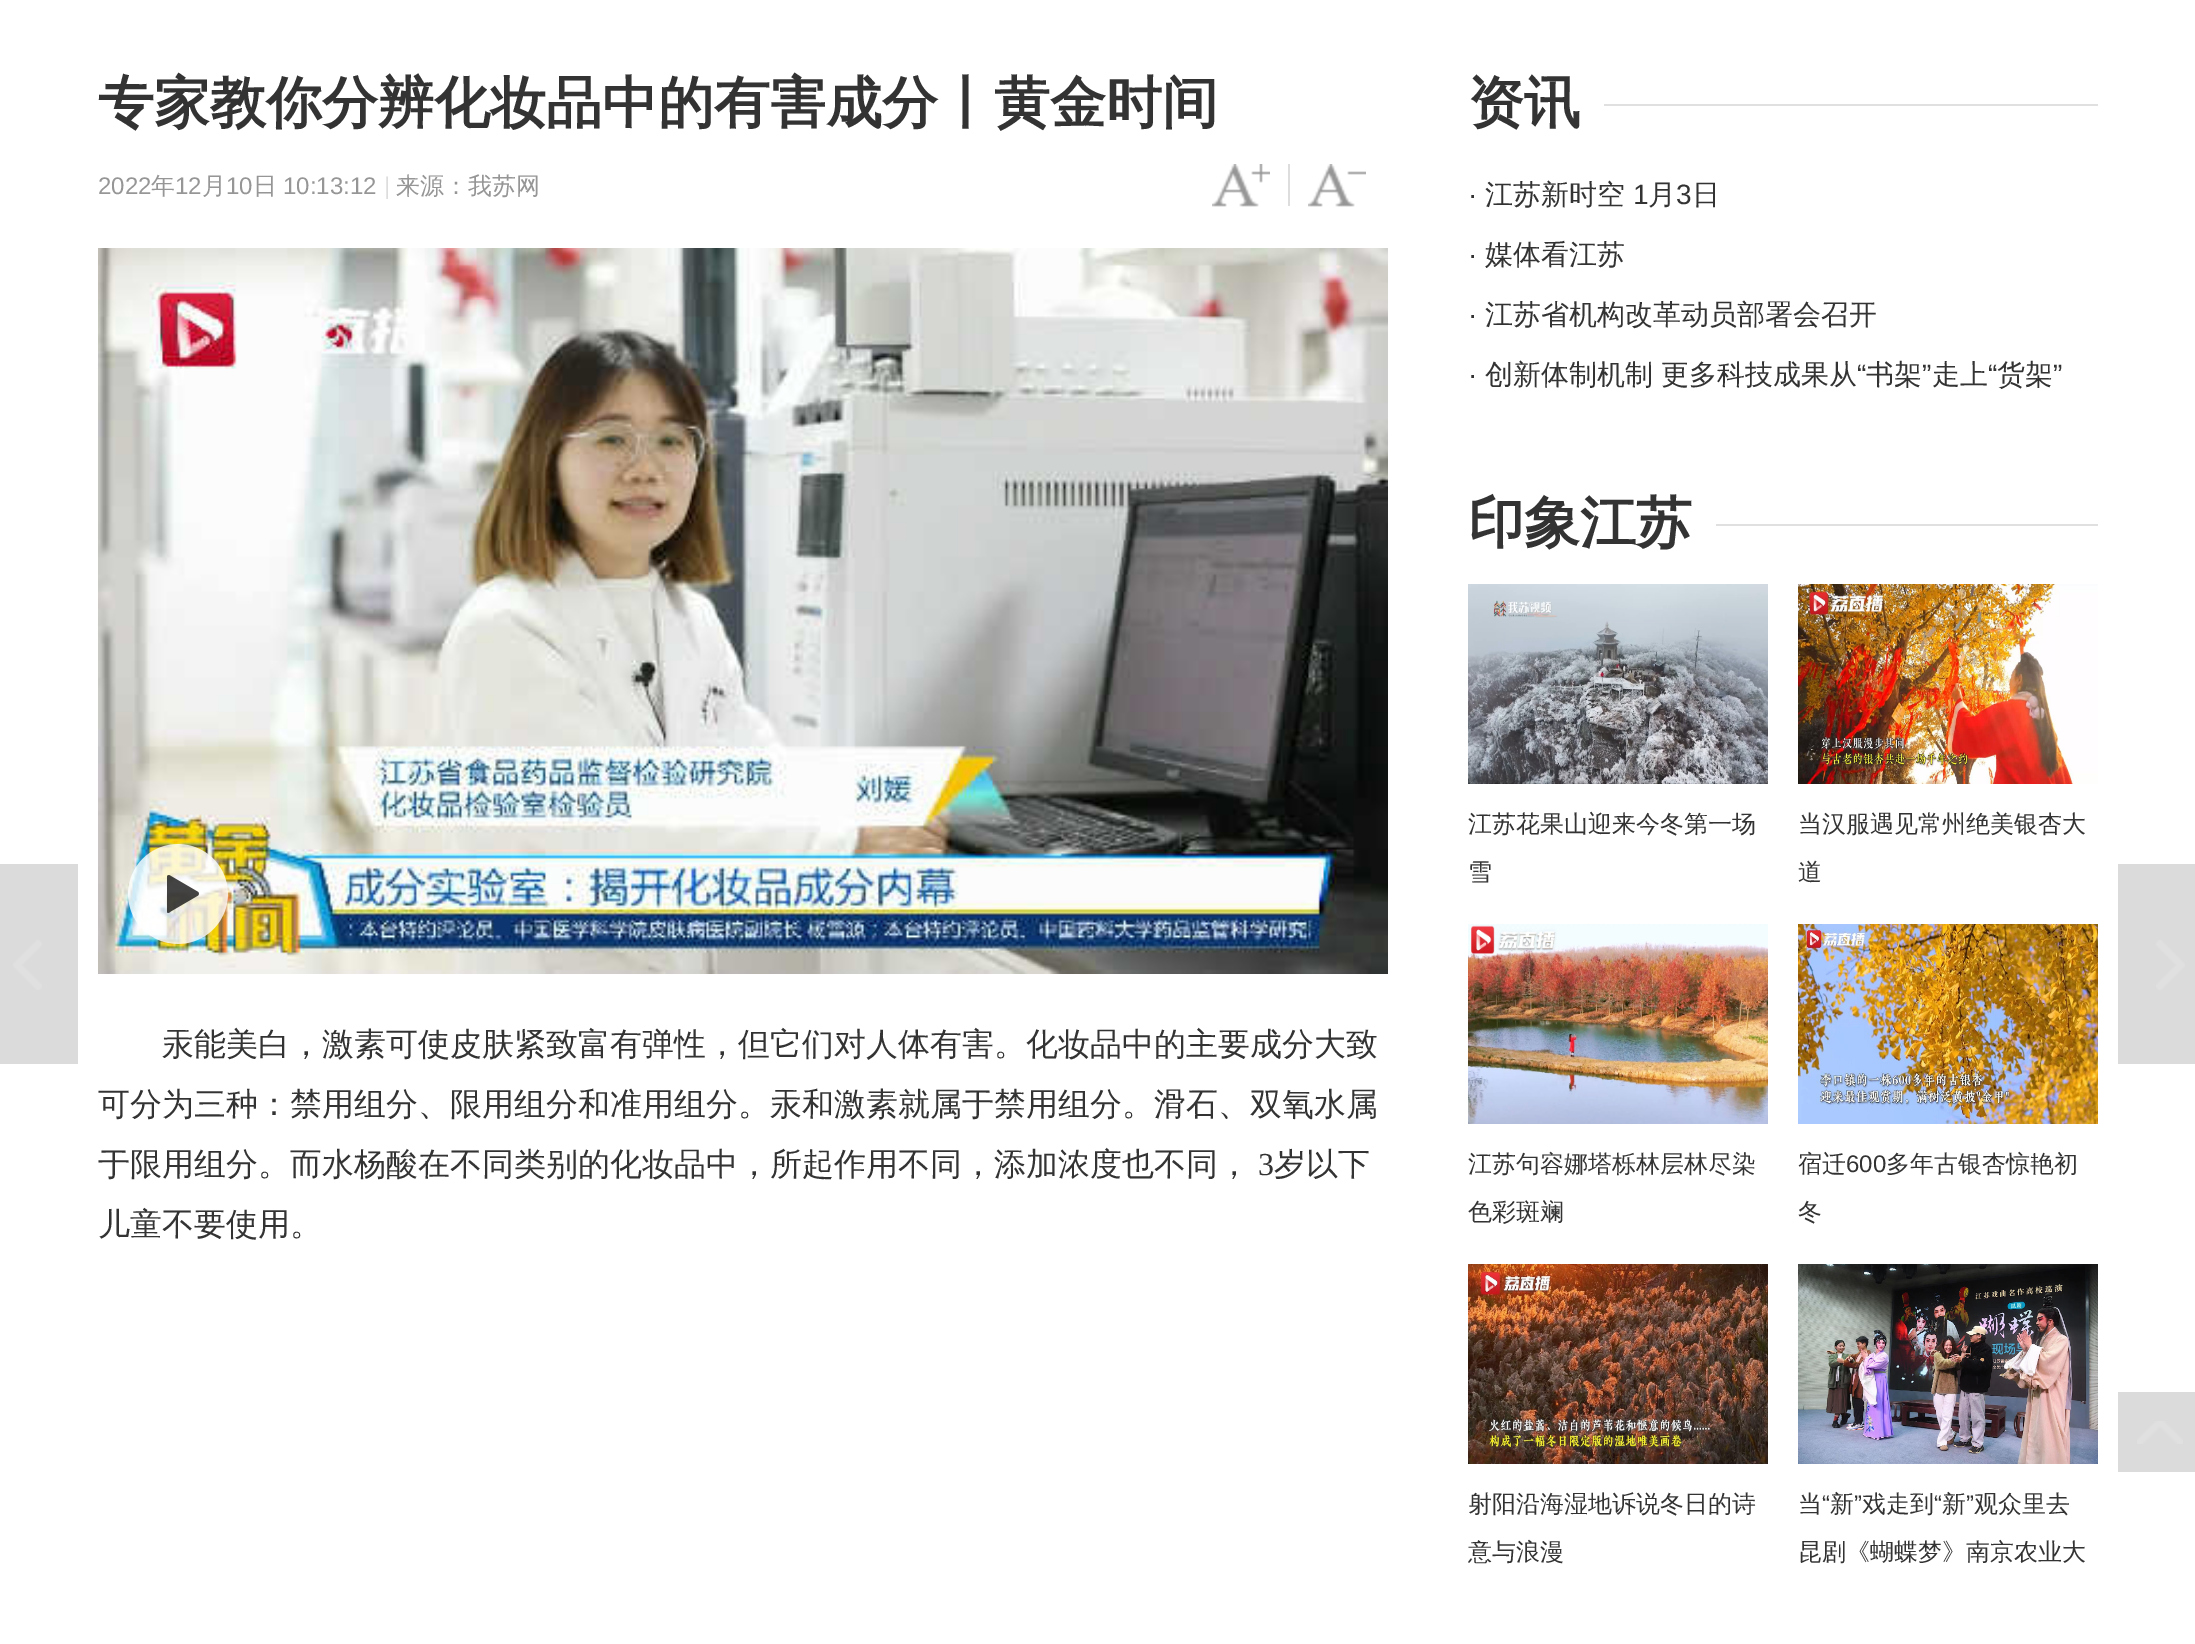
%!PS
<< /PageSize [2195 1644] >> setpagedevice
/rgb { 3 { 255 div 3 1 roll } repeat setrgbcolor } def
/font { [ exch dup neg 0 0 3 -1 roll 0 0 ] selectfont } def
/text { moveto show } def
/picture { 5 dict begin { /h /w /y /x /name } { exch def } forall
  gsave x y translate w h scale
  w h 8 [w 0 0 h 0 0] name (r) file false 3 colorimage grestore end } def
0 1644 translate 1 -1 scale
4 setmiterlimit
255 255 255 rgb
0 0 2195 1644 rectfill
(img_01.rgb) 1212 164 58 43 picture
221 221 221 rgb
1288 164 2 42 rectfill
(img_02.rgb) 1308 164 58 43 picture
(img_03.rgb) 98 248 1290 726 picture
(img_04.rgb) 128 844 100 100 picture
224 224 224 rgb
1604 104 494 2 rectfill
1716 524 382 2 rectfill
(img_05.rgb) 1468 584 300 200 picture
(img_06.rgb) 1798 584 300 200 picture
(img_07.rgb) 1468 924 300 200 picture
(img_08.rgb) 1798 924 300 200 picture
(img_09.rgb) 1468 1264 300 200 picture
(img_10.rgb) 1798 1264 300 200 picture
219 219 219 rgb
0 864 78 200 rectfill
(img_11.rgb) 13 940 29 50 picture
2118 864 77 200 rectfill
(img_12.rgb) 2156 940 29 50 picture
2118 1392 77 80 rectfill
(img_13.rgb) 2137 1421 46 23 picture
/WenQuanYiZenHei-Bold 56 font
51 51 51 rgb
(专家教你分辨化妆品中的有害成分丨黄金时间) 98 122 text
/LiberationSans-Regular 24 font
151 150 150 rgb
(2022) 98 194 text
/WenQuanYiZenHei-Medium 24 font
(年) 151 194 text
/LiberationSans-Regular 24 font
(12) 175 194 text
/WenQuanYiZenHei-Medium 24 font
(月) 202 194 text
/LiberationSans-Regular 24 font
(10) 226 194 text
/WenQuanYiZenHei-Medium 24 font
(日) 253 194 text
/LiberationSans-Regular 24 font
(10:13:12) 283 194 text
221 221 221 rgb
(|) 384 194 text
/WenQuanYiZenHei-Medium 24 font
151 150 150 rgb
(来源：我苏网) 396 194 text
/WenQuanYiZenHei-Medium 32 font
51 51 51 rgb
(汞能美白，激素可使皮肤紧致富有弹性，但它们对人体有害。化妆品中的主要成分大致) 162 1055 text
(可分为三种：禁用组分、限用组分和准用组分。汞和激素就属于禁用组分。滑石、双氧水属) 98 1115 text
(于限用组分。而水杨酸在不同类别的化妆品中，所起作用不同，添加浓度也不同，) 98 1175 text
/LiberationSerif-Regular 32 font
(3) 1258 1175 text
/WenQuanYiZenHei-Medium 32 font
(岁以下) 1274 1175 text
(儿童不要使用。) 98 1235 text
/WenQuanYiZenHei-Bold 56 font
(资讯) 1468 122 text
/LiberationSans-Regular 28 font
(·) 1468 204 text
/WenQuanYiZenHei-Medium 28 font
(江苏新时空) 1485 204 text
/LiberationSans-Regular 28 font
(1) 1633 204 text
/WenQuanYiZenHei-Medium 28 font
(月) 1648 204 text
/LiberationSans-Regular 28 font
(3) 1676 204 text
/WenQuanYiZenHei-Medium 28 font
(日) 1692 204 text
/LiberationSans-Regular 28 font
(·) 1468 264 text
/WenQuanYiZenHei-Medium 28 font
(媒体看江苏) 1485 264 text
/LiberationSans-Regular 28 font
(·) 1468 324 text
/WenQuanYiZenHei-Medium 28 font
(江苏省机构改革动员部署会召开) 1485 324 text
(创新体制机制 更多科技成果从) 1485 384 text
/LiberationSans-Regular 28 font
(“) 1857 384 text
/WenQuanYiZenHei-Medium 28 font
(书架) 1866 384 text
/LiberationSans-Regular 28 font
(”) 1922 384 text
/WenQuanYiZenHei-Medium 28 font
(走上) 1932 384 text
/LiberationSans-Regular 28 font
(“) 1988 384 text
/WenQuanYiZenHei-Medium 28 font
(货架) 1997 384 text
/LiberationSans-Regular 28 font
(”) 2053 384 text
(·) 1468 384 text
/WenQuanYiZenHei-Bold 56 font
(印象江苏) 1468 542 text
/WenQuanYiZenHei-Medium 24 font
(江苏花果山迎来今冬第一场) 1468 832 text
(雪) 1468 880 text
(当汉服遇见常州绝美银杏大) 1798 832 text
(道) 1798 880 text
(江苏句容娜塔栎林层林尽染) 1468 1172 text
(色彩斑斓) 1468 1220 text
(宿迁) 1798 1172 text
/LiberationSans-Regular 24 font
(600) 1846 1172 text
/WenQuanYiZenHei-Medium 24 font
(多年古银杏惊艳初) 1886 1172 text
(冬) 1798 1220 text
(射阳沿海湿地诉说冬日的诗) 1468 1512 text
(意与浪漫) 1468 1560 text
(当) 1798 1512 text
/LiberationSans-Regular 24 font
(“) 1822 1512 text
/WenQuanYiZenHei-Medium 24 font
(新) 1830 1512 text
/LiberationSans-Regular 24 font
(”) 1854 1512 text
/WenQuanYiZenHei-Medium 24 font
(戏走到) 1862 1512 text
/LiberationSans-Regular 24 font
(“) 1934 1512 text
/WenQuanYiZenHei-Medium 24 font
(新) 1942 1512 text
/LiberationSans-Regular 24 font
(”) 1966 1512 text
/WenQuanYiZenHei-Medium 24 font
(观众里去) 1974 1512 text
(昆剧《蝴蝶梦》南京农业大) 1798 1560 text
showpage
